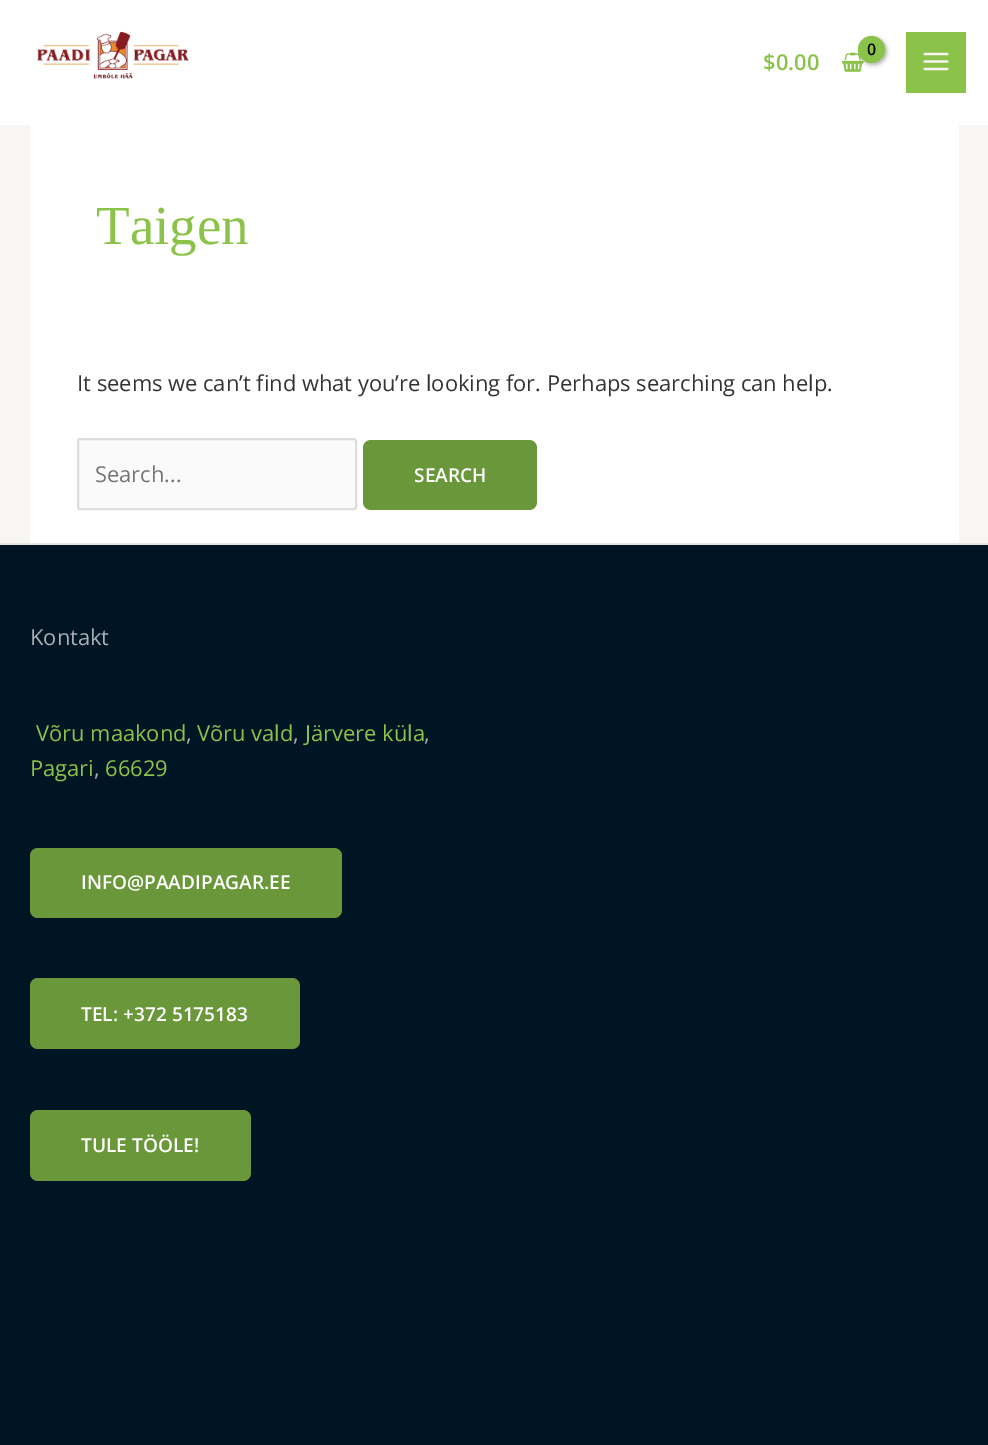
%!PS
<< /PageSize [988 1445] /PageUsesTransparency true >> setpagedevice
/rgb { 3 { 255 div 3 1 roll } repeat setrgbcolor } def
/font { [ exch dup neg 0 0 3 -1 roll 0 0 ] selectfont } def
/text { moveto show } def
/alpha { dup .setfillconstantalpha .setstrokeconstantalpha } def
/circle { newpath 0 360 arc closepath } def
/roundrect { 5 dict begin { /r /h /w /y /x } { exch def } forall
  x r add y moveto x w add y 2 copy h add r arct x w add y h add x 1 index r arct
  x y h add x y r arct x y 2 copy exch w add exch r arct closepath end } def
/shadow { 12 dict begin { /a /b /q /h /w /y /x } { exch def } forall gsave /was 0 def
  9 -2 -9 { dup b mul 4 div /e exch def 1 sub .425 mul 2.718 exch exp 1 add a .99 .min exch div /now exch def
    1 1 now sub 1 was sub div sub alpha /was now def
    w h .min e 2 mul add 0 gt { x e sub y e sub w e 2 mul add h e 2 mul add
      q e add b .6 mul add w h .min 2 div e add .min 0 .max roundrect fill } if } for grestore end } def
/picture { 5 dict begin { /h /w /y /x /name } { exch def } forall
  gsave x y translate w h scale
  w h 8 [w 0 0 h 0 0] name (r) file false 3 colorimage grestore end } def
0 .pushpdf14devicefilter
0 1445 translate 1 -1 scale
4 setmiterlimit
248 246 243 rgb
0 0 988 1445 rectfill
255 255 255 rgb
0 0 988 125 rectfill
(img_01.rgb) 37 31 152 48 picture
(img_02.rgb) 842 52 22 20 picture
0 0 0 rgb
860 38 27 27 13.5 2 0.3 shadow
139 195 74 rgb
871.5 49.5 13.5 circle fill
906 32 60 61 rectfill
(img_03.rgb) 923 52 26 19 picture
255 255 255 rgb
30 125 929 418 rectfill
250 250 250 rgb
78 439 278 70 2 roundrect gsave fill grestore
221 221 221 rgb
2 setlinewidth
stroke
106 151 57 rgb
363 440 174 70 8 roundrect fill
0 21 36 rgb
0 545 988 900 rectfill
230 230 230 rgb
0 543 988 2 rectfill
106 151 57 rgb
30 848 312 70 8 roundrect fill
30 978 270 71 8 roundrect fill
30 1110 221 71 8 roundrect fill
/OpenSans-SemiBold 16 font
0 0 0 rgb
867 55 moveto -1 0 (0) ashow
/OpenSans-SemiBold 21.9 font
139 195 74 rgb
($0.00) 763 70 text
/LiberationSerif-Regular 55 font
(Taigen) 96 244 text
/OpenSans-Regular 21.9 font
51 51 51 rgb
(It seems we can’t find what you’re looking for. Perhaps searching can help.) 77 391 text
117 117 117 rgb
(Search...) 95 482 text
/OpenSans-SemiBold 19.1 font
255 255 255 rgb
(SEARCH) 414 482 text
/OpenSans-Regular 21.9 font
168 175 181 rgb
(Kontakt) 30 645 text
139 195 74 rgb
(Võru maakond) 36 741 text
168 175 181 rgb
(,) 186 741 text
139 195 74 rgb
(Võru vald) 197 741 text
168 175 181 rgb
(,) 293 741 text
139 195 74 rgb
(Järvere küla) 305 741 text
168 175 181 rgb
(,) 424 741 text
139 195 74 rgb
(Pagari) 30 776 text
168 175 181 rgb
(,) 94 776 text
139 195 74 rgb
(66629) 105 776 text
/OpenSans-SemiBold 19.1 font
255 255 255 rgb
(INFO@PAADIPAGAR.EE) 81 889 text
(TEL: +372 5175183) 81 1021 text
(TULE TÖÖLE!) 81 1152 text
.poppdf14devicefilter showpage
